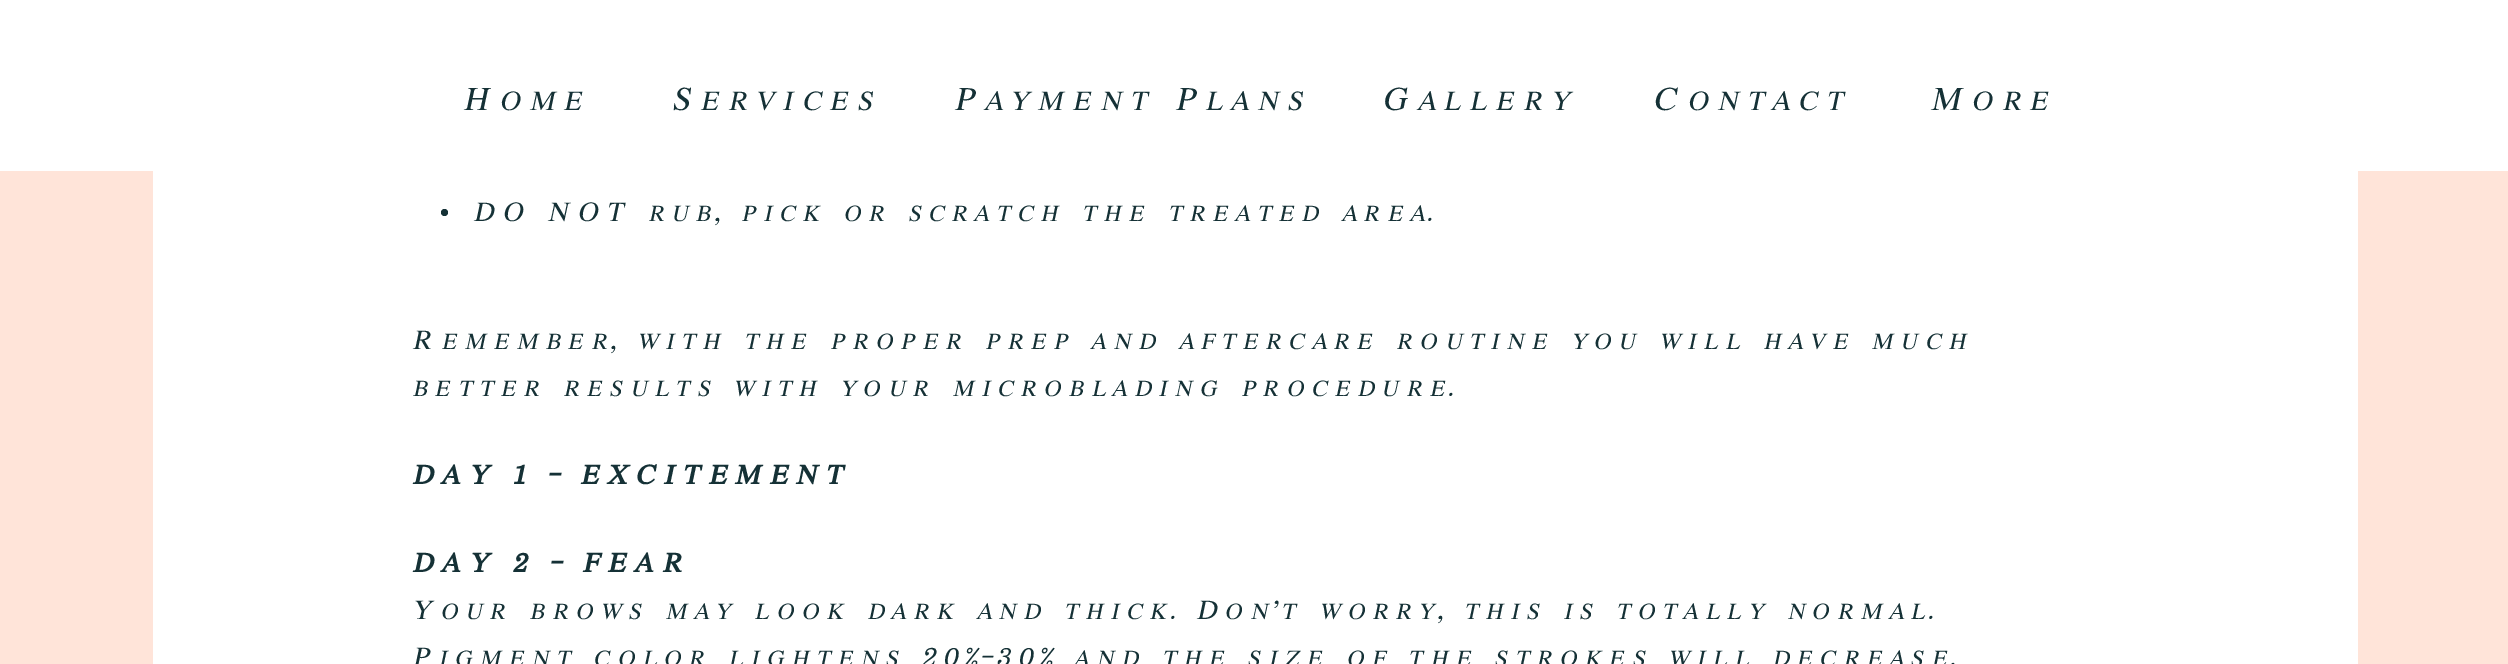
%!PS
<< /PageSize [2508 664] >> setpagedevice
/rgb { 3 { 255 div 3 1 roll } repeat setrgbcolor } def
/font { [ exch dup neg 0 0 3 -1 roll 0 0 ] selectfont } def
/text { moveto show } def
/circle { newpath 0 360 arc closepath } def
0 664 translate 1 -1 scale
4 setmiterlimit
255 228 217 rgb
0 0 2508 664 rectfill
255 255 255 rgb
0 0 2508 171 rectfill
153 171 2205 493 rectfill
21 49 54 rgb
444.5 212.5 3.5 circle fill
/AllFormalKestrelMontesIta-Italic 40.5 font
(Home) 458 110 text
(Services) 667 110 text
(Payment Plans) 949 110 text
(Gallery) 1377 110 text
(Contact) 1648 110 text
(More) 1925 110 text
/AllFormalKestrelMontesIta-Italic 33.75 font
(DO NOT rub, pick or scratch the treated area.) 469 221 text
(Remember, with the proper prep and aftercare routine you will have much) 408 349 text
(better results with your microblading procedure.) 408 396 text
/AllFormalKestrelMontesIta-BoldItalic 33.75 font
(DAY 1 - EXCITEMENT) 408 484 text
(DAY 2 - FEAR) 408 572 text
/AllFormalKestrelMontesIta-Italic 33.75 font
(Your brows may look dark and thick. Don't worry, this is totally normal.) 408 619 text
(Pigment color lightens 20%-30% and the size of the strokes will decrease.) 408 666 text
showpage
